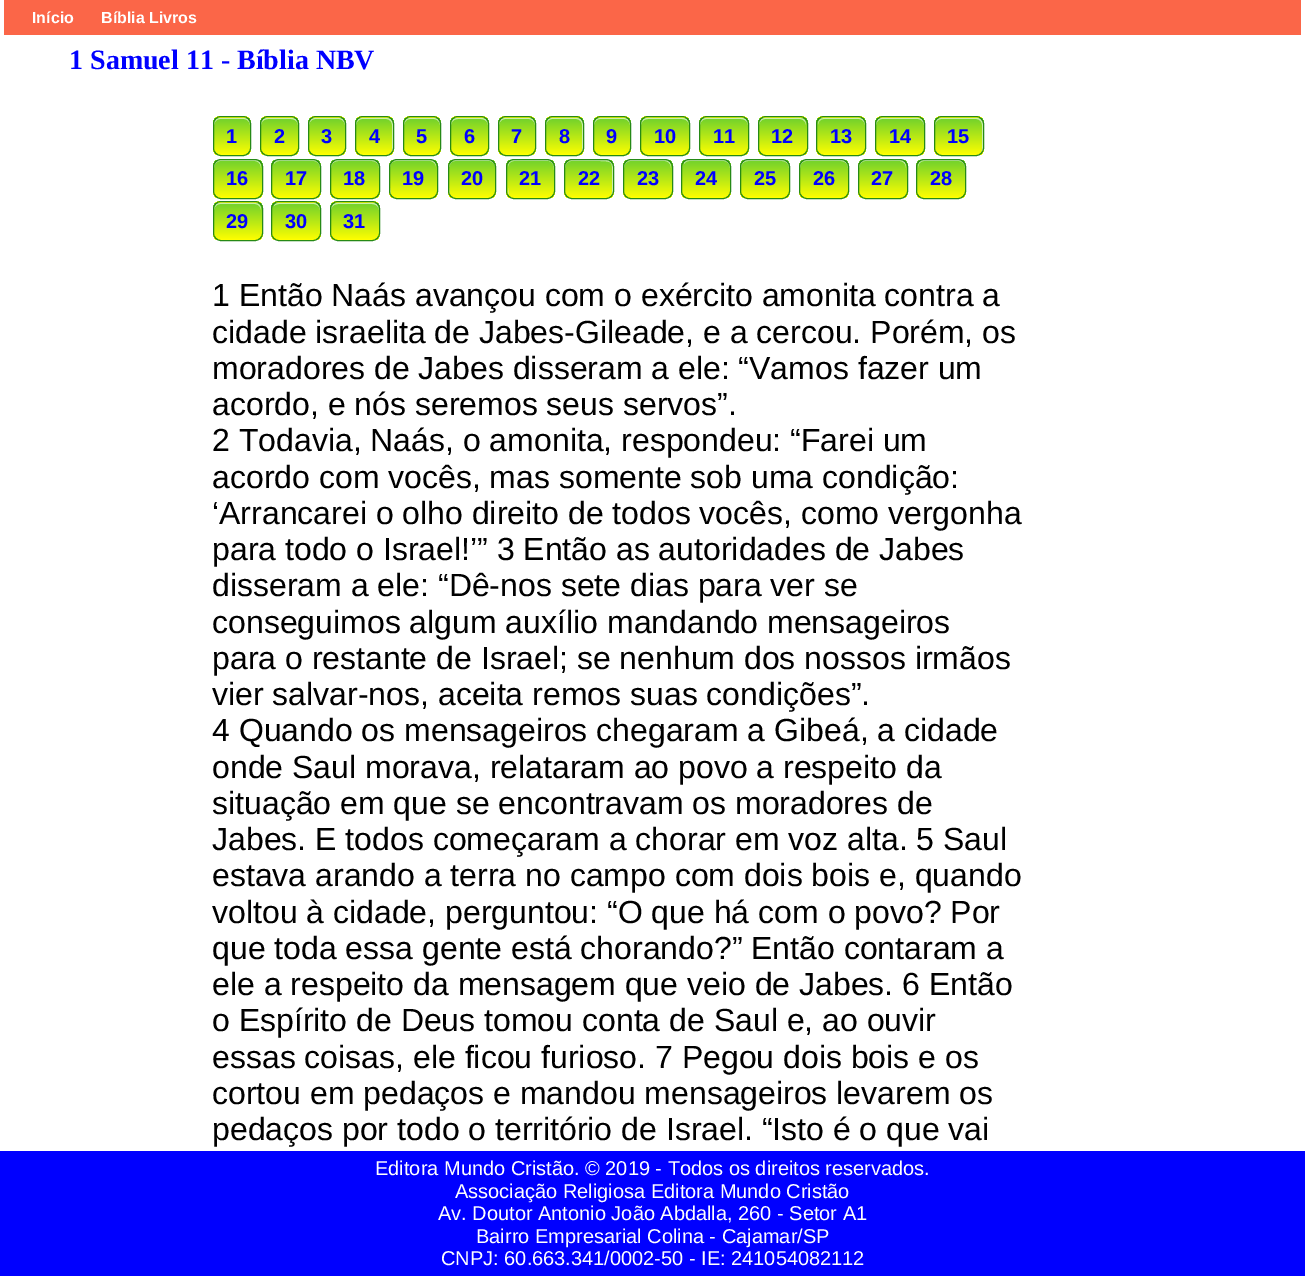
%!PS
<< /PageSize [1305 1276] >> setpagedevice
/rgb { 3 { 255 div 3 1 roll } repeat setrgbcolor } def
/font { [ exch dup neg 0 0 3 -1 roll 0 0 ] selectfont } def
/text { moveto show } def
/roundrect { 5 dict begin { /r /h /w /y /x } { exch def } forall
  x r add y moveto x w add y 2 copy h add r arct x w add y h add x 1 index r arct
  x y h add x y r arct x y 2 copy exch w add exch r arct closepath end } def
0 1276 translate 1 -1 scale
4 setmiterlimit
255 255 255 rgb
0 0 1305 1276 rectfill
251 102 72 rgb
4 0 1297 35 rectfill
gsave
213 116 38 40 8 roundrect clip newpath
gsave 213 116 moveto 38 0 rlineto 0 2 rlineto -38 0 rlineto closepath clip newpath
<< /ShadingType 2 /ColorSpace /DeviceRGB /Coords [232 80 232 118] /Extend [true true] /Function << /FunctionType 3 /Domain [0 1] /Functions [<< /FunctionType 2 /Domain [0 1] /C0 [0.467 0.831 0.165] /C1 [0.467 0.831 0.165] /N 1 >> << /FunctionType 2 /Domain [0 1] /C0 [0.467 0.831 0.165] /C1 [1 1 0] /N 1 >>] /Bounds [0.05] /Encode [0 1 0 1] >> >> shfill grestore
gsave 213 118 moveto 38 0 rlineto 0 37 rlineto -38 0 rlineto closepath clip newpath
<< /ShadingType 2 /ColorSpace /DeviceRGB /Coords [232 118 232 155] /Extend [true true] /Function << /FunctionType 3 /Domain [0 1] /Functions [<< /FunctionType 2 /Domain [0 1] /C0 [0.467 0.831 0.165] /C1 [0.467 0.831 0.165] /N 1 >> << /FunctionType 2 /Domain [0 1] /C0 [0.467 0.831 0.165] /C1 [1 1 0] /N 1 >>] /Bounds [0.05] /Encode [0 1 0 1] >> >> shfill grestore
grestore
202 239 171 rgb
220 119 moveto 24 0 rlineto 3 0 6 3 6 6 rcurveto 0 -7 -4.5 -7 -10 -7 rcurveto -16 0 rlineto -5.5 0 -10 0 -10 7 rcurveto 0 -3 3 -6 6 -6 rcurveto closepath fill
38 138 22 rgb
213.5 116.5 37 39 7.5 roundrect stroke
gsave
260 116 39 40 8 roundrect clip newpath
gsave 260 116 moveto 39 0 rlineto 0 2 rlineto -39 0 rlineto closepath clip newpath
<< /ShadingType 2 /ColorSpace /DeviceRGB /Coords [279 80 279 118] /Extend [true true] /Function << /FunctionType 3 /Domain [0 1] /Functions [<< /FunctionType 2 /Domain [0 1] /C0 [0.467 0.831 0.165] /C1 [0.467 0.831 0.165] /N 1 >> << /FunctionType 2 /Domain [0 1] /C0 [0.467 0.831 0.165] /C1 [1 1 0] /N 1 >>] /Bounds [0.05] /Encode [0 1 0 1] >> >> shfill grestore
gsave 260 118 moveto 39 0 rlineto 0 37 rlineto -39 0 rlineto closepath clip newpath
<< /ShadingType 2 /ColorSpace /DeviceRGB /Coords [279 118 279 155] /Extend [true true] /Function << /FunctionType 3 /Domain [0 1] /Functions [<< /FunctionType 2 /Domain [0 1] /C0 [0.467 0.831 0.165] /C1 [0.467 0.831 0.165] /N 1 >> << /FunctionType 2 /Domain [0 1] /C0 [0.467 0.831 0.165] /C1 [1 1 0] /N 1 >>] /Bounds [0.05] /Encode [0 1 0 1] >> >> shfill grestore
grestore
202 239 171 rgb
268 119 moveto 23 0 rlineto 4 0 7 3 7 6 rcurveto 0 -7 -4.5 -7 -10 -7 rcurveto -17 0 rlineto -5.5 0 -10 0 -10 7 rcurveto 0 -3 3 -6 7 -6 rcurveto closepath fill
38 138 22 rgb
260.5 116.5 38 39 7.5 roundrect stroke
gsave
308 116 38 40 8 roundrect clip newpath
gsave 308 116 moveto 38 0 rlineto 0 2 rlineto -38 0 rlineto closepath clip newpath
<< /ShadingType 2 /ColorSpace /DeviceRGB /Coords [327 80 327 118] /Extend [true true] /Function << /FunctionType 3 /Domain [0 1] /Functions [<< /FunctionType 2 /Domain [0 1] /C0 [0.467 0.831 0.165] /C1 [0.467 0.831 0.165] /N 1 >> << /FunctionType 2 /Domain [0 1] /C0 [0.467 0.831 0.165] /C1 [1 1 0] /N 1 >>] /Bounds [0.05] /Encode [0 1 0 1] >> >> shfill grestore
gsave 308 118 moveto 38 0 rlineto 0 37 rlineto -38 0 rlineto closepath clip newpath
<< /ShadingType 2 /ColorSpace /DeviceRGB /Coords [327 118 327 155] /Extend [true true] /Function << /FunctionType 3 /Domain [0 1] /Functions [<< /FunctionType 2 /Domain [0 1] /C0 [0.467 0.831 0.165] /C1 [0.467 0.831 0.165] /N 1 >> << /FunctionType 2 /Domain [0 1] /C0 [0.467 0.831 0.165] /C1 [1 1 0] /N 1 >>] /Bounds [0.05] /Encode [0 1 0 1] >> >> shfill grestore
grestore
202 239 171 rgb
315 119 moveto 24 0 rlineto 3 0 6 3 6 6 rcurveto 0 -7 -4.5 -7 -10 -7 rcurveto -16 0 rlineto -5.5 0 -10 0 -10 7 rcurveto 0 -3 3 -6 6 -6 rcurveto closepath fill
38 138 22 rgb
308.5 116.5 37 39 7.5 roundrect stroke
gsave
355 116 39 40 8 roundrect clip newpath
gsave 355 116 moveto 39 0 rlineto 0 2 rlineto -39 0 rlineto closepath clip newpath
<< /ShadingType 2 /ColorSpace /DeviceRGB /Coords [374 80 374 118] /Extend [true true] /Function << /FunctionType 3 /Domain [0 1] /Functions [<< /FunctionType 2 /Domain [0 1] /C0 [0.467 0.831 0.165] /C1 [0.467 0.831 0.165] /N 1 >> << /FunctionType 2 /Domain [0 1] /C0 [0.467 0.831 0.165] /C1 [1 1 0] /N 1 >>] /Bounds [0.05] /Encode [0 1 0 1] >> >> shfill grestore
gsave 355 118 moveto 39 0 rlineto 0 37 rlineto -39 0 rlineto closepath clip newpath
<< /ShadingType 2 /ColorSpace /DeviceRGB /Coords [374 118 374 155] /Extend [true true] /Function << /FunctionType 3 /Domain [0 1] /Functions [<< /FunctionType 2 /Domain [0 1] /C0 [0.467 0.831 0.165] /C1 [0.467 0.831 0.165] /N 1 >> << /FunctionType 2 /Domain [0 1] /C0 [0.467 0.831 0.165] /C1 [1 1 0] /N 1 >>] /Bounds [0.05] /Encode [0 1 0 1] >> >> shfill grestore
grestore
202 239 171 rgb
362 119 moveto 24 0 rlineto 4 0 6 3 6 6 rcurveto 0 25 rlineto 0 1 -0.5 2.5 -1 3.5 rcurveto 2.5 -2.5 2 -5.5 2 -8.5 rcurveto 0 -8.5 rlineto 0 -20 1.5 -18.5 -18.5 -18.5 rcurveto -8.5 0 rlineto -5.5 0 -10 0 -10 7 rcurveto 0 -3 3 -6 6 -6 rcurveto closepath fill
38 138 22 rgb
355.5 116.5 38 39 7.5 roundrect stroke
gsave
403 116 38 40 8 roundrect clip newpath
gsave 403 116 moveto 38 0 rlineto 0 2 rlineto -38 0 rlineto closepath clip newpath
<< /ShadingType 2 /ColorSpace /DeviceRGB /Coords [422 80 422 118] /Extend [true true] /Function << /FunctionType 3 /Domain [0 1] /Functions [<< /FunctionType 2 /Domain [0 1] /C0 [0.467 0.831 0.165] /C1 [0.467 0.831 0.165] /N 1 >> << /FunctionType 2 /Domain [0 1] /C0 [0.467 0.831 0.165] /C1 [1 1 0] /N 1 >>] /Bounds [0.05] /Encode [0 1 0 1] >> >> shfill grestore
gsave 403 118 moveto 38 0 rlineto 0 37 rlineto -38 0 rlineto closepath clip newpath
<< /ShadingType 2 /ColorSpace /DeviceRGB /Coords [422 118 422 155] /Extend [true true] /Function << /FunctionType 3 /Domain [0 1] /Functions [<< /FunctionType 2 /Domain [0 1] /C0 [0.467 0.831 0.165] /C1 [0.467 0.831 0.165] /N 1 >> << /FunctionType 2 /Domain [0 1] /C0 [0.467 0.831 0.165] /C1 [1 1 0] /N 1 >>] /Bounds [0.05] /Encode [0 1 0 1] >> >> shfill grestore
grestore
202 239 171 rgb
410 119 moveto 24 0 rlineto 3 0 6 3 6 6 rcurveto 0 -7 -4.5 -7 -10 -7 rcurveto -16 0 rlineto -5.5 0 -10 0 -10 7 rcurveto 0 -3 3 -6 6 -6 rcurveto closepath fill
38 138 22 rgb
403.5 116.5 37 39 7.5 roundrect stroke
gsave
450 116 39 40 8 roundrect clip newpath
gsave 450 116 moveto 39 0 rlineto 0 2 rlineto -39 0 rlineto closepath clip newpath
<< /ShadingType 2 /ColorSpace /DeviceRGB /Coords [469 80 469 118] /Extend [true true] /Function << /FunctionType 3 /Domain [0 1] /Functions [<< /FunctionType 2 /Domain [0 1] /C0 [0.467 0.831 0.165] /C1 [0.467 0.831 0.165] /N 1 >> << /FunctionType 2 /Domain [0 1] /C0 [0.467 0.831 0.165] /C1 [1 1 0] /N 1 >>] /Bounds [0.05] /Encode [0 1 0 1] >> >> shfill grestore
gsave 450 118 moveto 39 0 rlineto 0 37 rlineto -39 0 rlineto closepath clip newpath
<< /ShadingType 2 /ColorSpace /DeviceRGB /Coords [469 118 469 155] /Extend [true true] /Function << /FunctionType 3 /Domain [0 1] /Functions [<< /FunctionType 2 /Domain [0 1] /C0 [0.467 0.831 0.165] /C1 [0.467 0.831 0.165] /N 1 >> << /FunctionType 2 /Domain [0 1] /C0 [0.467 0.831 0.165] /C1 [1 1 0] /N 1 >>] /Bounds [0.05] /Encode [0 1 0 1] >> >> shfill grestore
grestore
202 239 171 rgb
458 119 moveto 23 0 rlineto 4 0 7 3 7 6 rcurveto 0 -7 -4.5 -7 -10 -7 rcurveto -17 0 rlineto -5.5 0 -10 0 -10 7 rcurveto 0 -3 3 -6 7 -6 rcurveto closepath fill
38 138 22 rgb
450.5 116.5 38 39 7.5 roundrect stroke
gsave
498 116 38 40 8 roundrect clip newpath
gsave 498 116 moveto 38 0 rlineto 0 2 rlineto -38 0 rlineto closepath clip newpath
<< /ShadingType 2 /ColorSpace /DeviceRGB /Coords [517 80 517 118] /Extend [true true] /Function << /FunctionType 3 /Domain [0 1] /Functions [<< /FunctionType 2 /Domain [0 1] /C0 [0.467 0.831 0.165] /C1 [0.467 0.831 0.165] /N 1 >> << /FunctionType 2 /Domain [0 1] /C0 [0.467 0.831 0.165] /C1 [1 1 0] /N 1 >>] /Bounds [0.05] /Encode [0 1 0 1] >> >> shfill grestore
gsave 498 118 moveto 38 0 rlineto 0 37 rlineto -38 0 rlineto closepath clip newpath
<< /ShadingType 2 /ColorSpace /DeviceRGB /Coords [517 118 517 155] /Extend [true true] /Function << /FunctionType 3 /Domain [0 1] /Functions [<< /FunctionType 2 /Domain [0 1] /C0 [0.467 0.831 0.165] /C1 [0.467 0.831 0.165] /N 1 >> << /FunctionType 2 /Domain [0 1] /C0 [0.467 0.831 0.165] /C1 [1 1 0] /N 1 >>] /Bounds [0.05] /Encode [0 1 0 1] >> >> shfill grestore
grestore
202 239 171 rgb
505 119 moveto 24 0 rlineto 3 0 6 3 6 6 rcurveto 0 -7 -4.5 -7 -10 -7 rcurveto -16 0 rlineto -5.5 0 -10 0 -10 7 rcurveto 0 -3 3 -6 6 -6 rcurveto closepath fill
38 138 22 rgb
498.5 116.5 37 39 7.5 roundrect stroke
gsave
545 116 39 40 8 roundrect clip newpath
gsave 545 116 moveto 39 0 rlineto 0 2 rlineto -39 0 rlineto closepath clip newpath
<< /ShadingType 2 /ColorSpace /DeviceRGB /Coords [564 80 564 118] /Extend [true true] /Function << /FunctionType 3 /Domain [0 1] /Functions [<< /FunctionType 2 /Domain [0 1] /C0 [0.467 0.831 0.165] /C1 [0.467 0.831 0.165] /N 1 >> << /FunctionType 2 /Domain [0 1] /C0 [0.467 0.831 0.165] /C1 [1 1 0] /N 1 >>] /Bounds [0.05] /Encode [0 1 0 1] >> >> shfill grestore
gsave 545 118 moveto 39 0 rlineto 0 37 rlineto -39 0 rlineto closepath clip newpath
<< /ShadingType 2 /ColorSpace /DeviceRGB /Coords [564 118 564 155] /Extend [true true] /Function << /FunctionType 3 /Domain [0 1] /Functions [<< /FunctionType 2 /Domain [0 1] /C0 [0.467 0.831 0.165] /C1 [0.467 0.831 0.165] /N 1 >> << /FunctionType 2 /Domain [0 1] /C0 [0.467 0.831 0.165] /C1 [1 1 0] /N 1 >>] /Bounds [0.05] /Encode [0 1 0 1] >> >> shfill grestore
grestore
202 239 171 rgb
552 119 moveto 24 0 rlineto 4 0 6 3 6 6 rcurveto 0 25 rlineto 0 1 -0.5 2.5 -1 3.5 rcurveto 2.5 -2.5 2 -5.5 2 -8.5 rcurveto 0 -8.5 rlineto 0 -20 1.5 -18.5 -18.5 -18.5 rcurveto -8.5 0 rlineto -5.5 0 -10 0 -10 7 rcurveto 0 -3 3 -6 6 -6 rcurveto closepath fill
38 138 22 rgb
545.5 116.5 38 39 7.5 roundrect stroke
gsave
593 116 38 40 8 roundrect clip newpath
gsave 593 116 moveto 38 0 rlineto 0 2 rlineto -38 0 rlineto closepath clip newpath
<< /ShadingType 2 /ColorSpace /DeviceRGB /Coords [612 80 612 118] /Extend [true true] /Function << /FunctionType 3 /Domain [0 1] /Functions [<< /FunctionType 2 /Domain [0 1] /C0 [0.467 0.831 0.165] /C1 [0.467 0.831 0.165] /N 1 >> << /FunctionType 2 /Domain [0 1] /C0 [0.467 0.831 0.165] /C1 [1 1 0] /N 1 >>] /Bounds [0.05] /Encode [0 1 0 1] >> >> shfill grestore
gsave 593 118 moveto 38 0 rlineto 0 37 rlineto -38 0 rlineto closepath clip newpath
<< /ShadingType 2 /ColorSpace /DeviceRGB /Coords [612 118 612 155] /Extend [true true] /Function << /FunctionType 3 /Domain [0 1] /Functions [<< /FunctionType 2 /Domain [0 1] /C0 [0.467 0.831 0.165] /C1 [0.467 0.831 0.165] /N 1 >> << /FunctionType 2 /Domain [0 1] /C0 [0.467 0.831 0.165] /C1 [1 1 0] /N 1 >>] /Bounds [0.05] /Encode [0 1 0 1] >> >> shfill grestore
grestore
202 239 171 rgb
600 119 moveto 24 0 rlineto 3 0 6 3 6 6 rcurveto 0 -7 -4.5 -7 -10 -7 rcurveto -16 0 rlineto -5.5 0 -10 0 -10 7 rcurveto 0 -3 3 -6 6 -6 rcurveto closepath fill
38 138 22 rgb
593.5 116.5 37 39 7.5 roundrect stroke
gsave
640 116 50 40 8 roundrect clip newpath
gsave 640 116 moveto 50 0 rlineto 0 2 rlineto -50 0 rlineto closepath clip newpath
<< /ShadingType 2 /ColorSpace /DeviceRGB /Coords [665 80 665 118] /Extend [true true] /Function << /FunctionType 3 /Domain [0 1] /Functions [<< /FunctionType 2 /Domain [0 1] /C0 [0.467 0.831 0.165] /C1 [0.467 0.831 0.165] /N 1 >> << /FunctionType 2 /Domain [0 1] /C0 [0.467 0.831 0.165] /C1 [1 1 0] /N 1 >>] /Bounds [0.05] /Encode [0 1 0 1] >> >> shfill grestore
gsave 640 118 moveto 50 0 rlineto 0 37 rlineto -50 0 rlineto closepath clip newpath
<< /ShadingType 2 /ColorSpace /DeviceRGB /Coords [665 118 665 155] /Extend [true true] /Function << /FunctionType 3 /Domain [0 1] /Functions [<< /FunctionType 2 /Domain [0 1] /C0 [0.467 0.831 0.165] /C1 [0.467 0.831 0.165] /N 1 >> << /FunctionType 2 /Domain [0 1] /C0 [0.467 0.831 0.165] /C1 [1 1 0] /N 1 >>] /Bounds [0.05] /Encode [0 1 0 1] >> >> shfill grestore
grestore
202 239 171 rgb
648 119 moveto 34 0 rlineto 4 0 7 3 7 6 rcurveto 0 -8 -6 -7 -12 -7 rcurveto -24 0 rlineto -6 0 -12 -1 -12 7 rcurveto 0 -3 3 -6 7 -6 rcurveto closepath fill
38 138 22 rgb
640.5 116.5 49 39 7.5 roundrect stroke
gsave
699 116 50 40 8 roundrect clip newpath
gsave 699 116 moveto 50 0 rlineto 0 2 rlineto -50 0 rlineto closepath clip newpath
<< /ShadingType 2 /ColorSpace /DeviceRGB /Coords [724 80 724 118] /Extend [true true] /Function << /FunctionType 3 /Domain [0 1] /Functions [<< /FunctionType 2 /Domain [0 1] /C0 [0.467 0.831 0.165] /C1 [0.467 0.831 0.165] /N 1 >> << /FunctionType 2 /Domain [0 1] /C0 [0.467 0.831 0.165] /C1 [1 1 0] /N 1 >>] /Bounds [0.05] /Encode [0 1 0 1] >> >> shfill grestore
gsave 699 118 moveto 50 0 rlineto 0 37 rlineto -50 0 rlineto closepath clip newpath
<< /ShadingType 2 /ColorSpace /DeviceRGB /Coords [724 118 724 155] /Extend [true true] /Function << /FunctionType 3 /Domain [0 1] /Functions [<< /FunctionType 2 /Domain [0 1] /C0 [0.467 0.831 0.165] /C1 [0.467 0.831 0.165] /N 1 >> << /FunctionType 2 /Domain [0 1] /C0 [0.467 0.831 0.165] /C1 [1 1 0] /N 1 >>] /Bounds [0.05] /Encode [0 1 0 1] >> >> shfill grestore
grestore
202 239 171 rgb
706 119 moveto 35 0 rlineto 4 0 7 3 7 6 rcurveto 0 -8 -6 -7 -12 -7 rcurveto -24 0 rlineto -6 0 -12 -1 -12 7 rcurveto 0 -3 3 -6 6 -6 rcurveto closepath fill
38 138 22 rgb
699.5 116.5 49 39 7.5 roundrect stroke
gsave
758 116 50 40 8 roundrect clip newpath
gsave 758 116 moveto 50 0 rlineto 0 2 rlineto -50 0 rlineto closepath clip newpath
<< /ShadingType 2 /ColorSpace /DeviceRGB /Coords [783 80 783 118] /Extend [true true] /Function << /FunctionType 3 /Domain [0 1] /Functions [<< /FunctionType 2 /Domain [0 1] /C0 [0.467 0.831 0.165] /C1 [0.467 0.831 0.165] /N 1 >> << /FunctionType 2 /Domain [0 1] /C0 [0.467 0.831 0.165] /C1 [1 1 0] /N 1 >>] /Bounds [0.05] /Encode [0 1 0 1] >> >> shfill grestore
gsave 758 118 moveto 50 0 rlineto 0 37 rlineto -50 0 rlineto closepath clip newpath
<< /ShadingType 2 /ColorSpace /DeviceRGB /Coords [783 118 783 155] /Extend [true true] /Function << /FunctionType 3 /Domain [0 1] /Functions [<< /FunctionType 2 /Domain [0 1] /C0 [0.467 0.831 0.165] /C1 [0.467 0.831 0.165] /N 1 >> << /FunctionType 2 /Domain [0 1] /C0 [0.467 0.831 0.165] /C1 [1 1 0] /N 1 >>] /Bounds [0.05] /Encode [0 1 0 1] >> >> shfill grestore
grestore
202 239 171 rgb
765 119 moveto 35 0 rlineto 3 0 6 3 6 6 rcurveto 0 -8 -6 -7 -12 -7 rcurveto -23 0 rlineto -6 0 -12 -1 -12 7 rcurveto 0 -3 3 -6 6 -6 rcurveto closepath fill
38 138 22 rgb
758.5 116.5 49 39 7.5 roundrect stroke
gsave
816 116 50 40 8 roundrect clip newpath
gsave 816 116 moveto 50 0 rlineto 0 2 rlineto -50 0 rlineto closepath clip newpath
<< /ShadingType 2 /ColorSpace /DeviceRGB /Coords [841 80 841 118] /Extend [true true] /Function << /FunctionType 3 /Domain [0 1] /Functions [<< /FunctionType 2 /Domain [0 1] /C0 [0.467 0.831 0.165] /C1 [0.467 0.831 0.165] /N 1 >> << /FunctionType 2 /Domain [0 1] /C0 [0.467 0.831 0.165] /C1 [1 1 0] /N 1 >>] /Bounds [0.05] /Encode [0 1 0 1] >> >> shfill grestore
gsave 816 118 moveto 50 0 rlineto 0 37 rlineto -50 0 rlineto closepath clip newpath
<< /ShadingType 2 /ColorSpace /DeviceRGB /Coords [841 118 841 155] /Extend [true true] /Function << /FunctionType 3 /Domain [0 1] /Functions [<< /FunctionType 2 /Domain [0 1] /C0 [0.467 0.831 0.165] /C1 [0.467 0.831 0.165] /N 1 >> << /FunctionType 2 /Domain [0 1] /C0 [0.467 0.831 0.165] /C1 [1 1 0] /N 1 >>] /Bounds [0.05] /Encode [0 1 0 1] >> >> shfill grestore
grestore
202 239 171 rgb
824 119 moveto 35 0 rlineto 3 0 6 3 6 6 rcurveto 0 -8 -6 -7 -12 -7 rcurveto -23 0 rlineto -6 0 -12 -1 -12 7 rcurveto 0 -3 2 -6 6 -6 rcurveto closepath fill
38 138 22 rgb
816.5 116.5 49 39 7.5 roundrect stroke
gsave
875 116 50 40 8 roundrect clip newpath
gsave 875 116 moveto 50 0 rlineto 0 2 rlineto -50 0 rlineto closepath clip newpath
<< /ShadingType 2 /ColorSpace /DeviceRGB /Coords [900 80 900 118] /Extend [true true] /Function << /FunctionType 3 /Domain [0 1] /Functions [<< /FunctionType 2 /Domain [0 1] /C0 [0.467 0.831 0.165] /C1 [0.467 0.831 0.165] /N 1 >> << /FunctionType 2 /Domain [0 1] /C0 [0.467 0.831 0.165] /C1 [1 1 0] /N 1 >>] /Bounds [0.05] /Encode [0 1 0 1] >> >> shfill grestore
gsave 875 118 moveto 50 0 rlineto 0 37 rlineto -50 0 rlineto closepath clip newpath
<< /ShadingType 2 /ColorSpace /DeviceRGB /Coords [900 118 900 155] /Extend [true true] /Function << /FunctionType 3 /Domain [0 1] /Functions [<< /FunctionType 2 /Domain [0 1] /C0 [0.467 0.831 0.165] /C1 [0.467 0.831 0.165] /N 1 >> << /FunctionType 2 /Domain [0 1] /C0 [0.467 0.831 0.165] /C1 [1 1 0] /N 1 >>] /Bounds [0.05] /Encode [0 1 0 1] >> >> shfill grestore
grestore
202 239 171 rgb
882 119 moveto 36 0 rlineto 3 0 6 3 6 6 rcurveto 0 -8 -6 -7 -12 -7 rcurveto -24 0 rlineto -6 0 -12 -1 -12 7 rcurveto 0 -3 3 -6 6 -6 rcurveto closepath fill
38 138 22 rgb
875.5 116.5 49 39 7.5 roundrect stroke
gsave
934 116 50 40 8 roundrect clip newpath
gsave 934 116 moveto 50 0 rlineto 0 2 rlineto -50 0 rlineto closepath clip newpath
<< /ShadingType 2 /ColorSpace /DeviceRGB /Coords [959 80 959 118] /Extend [true true] /Function << /FunctionType 3 /Domain [0 1] /Functions [<< /FunctionType 2 /Domain [0 1] /C0 [0.467 0.831 0.165] /C1 [0.467 0.831 0.165] /N 1 >> << /FunctionType 2 /Domain [0 1] /C0 [0.467 0.831 0.165] /C1 [1 1 0] /N 1 >>] /Bounds [0.05] /Encode [0 1 0 1] >> >> shfill grestore
gsave 934 118 moveto 50 0 rlineto 0 37 rlineto -50 0 rlineto closepath clip newpath
<< /ShadingType 2 /ColorSpace /DeviceRGB /Coords [959 118 959 155] /Extend [true true] /Function << /FunctionType 3 /Domain [0 1] /Functions [<< /FunctionType 2 /Domain [0 1] /C0 [0.467 0.831 0.165] /C1 [0.467 0.831 0.165] /N 1 >> << /FunctionType 2 /Domain [0 1] /C0 [0.467 0.831 0.165] /C1 [1 1 0] /N 1 >>] /Bounds [0.05] /Encode [0 1 0 1] >> >> shfill grestore
grestore
202 239 171 rgb
941 119 moveto 35 0 rlineto 4 0 6 3 6 6 rcurveto 0 25 rlineto 0 1 0 2 -1 3 rcurveto 1 -1 2 -2 2 -4 rcurveto 0 -25 rlineto 0 -3 -3 -6 -6 -6 rcurveto -36 0 rlineto -3 0 -6 3 -6 6 rcurveto 0 1 rlineto 0 -3 3 -6 6 -6 rcurveto closepath fill
38 138 22 rgb
934.5 116.5 49 39 7.5 roundrect stroke
gsave
213 159 50 40 8 roundrect clip newpath
gsave 213 160 moveto 50 0 rlineto 0 38 rlineto -50 0 rlineto closepath clip newpath
<< /ShadingType 2 /ColorSpace /DeviceRGB /Coords [238 160 238 198] /Extend [true true] /Function << /FunctionType 3 /Domain [0 1] /Functions [<< /FunctionType 2 /Domain [0 1] /C0 [0.467 0.831 0.165] /C1 [0.467 0.831 0.165] /N 1 >> << /FunctionType 2 /Domain [0 1] /C0 [0.467 0.831 0.165] /C1 [1 1 0] /N 1 >>] /Bounds [0.05] /Encode [0 1 0 1] >> >> shfill grestore
grestore
202 239 171 rgb
220 161 moveto 35 0 rlineto 3 0 6 3 6 7 rcurveto 0 -9 -5 -8 -12 -8 rcurveto -23 0 rlineto -7 0 -12 -1 -12 8 rcurveto 0 -4 3 -7 6 -7 rcurveto closepath fill
38 138 22 rgb
213.5 159.5 49 39 7.5 roundrect stroke
gsave
271 159 50 40 8 roundrect clip newpath
gsave 271 160 moveto 50 0 rlineto 0 38 rlineto -50 0 rlineto closepath clip newpath
<< /ShadingType 2 /ColorSpace /DeviceRGB /Coords [296 160 296 198] /Extend [true true] /Function << /FunctionType 3 /Domain [0 1] /Functions [<< /FunctionType 2 /Domain [0 1] /C0 [0.467 0.831 0.165] /C1 [0.467 0.831 0.165] /N 1 >> << /FunctionType 2 /Domain [0 1] /C0 [0.467 0.831 0.165] /C1 [1 1 0] /N 1 >>] /Bounds [0.05] /Encode [0 1 0 1] >> >> shfill grestore
grestore
202 239 171 rgb
279 161 moveto 35 0 rlineto 3 0 6 3 6 7 rcurveto 0 -2 rlineto 0 -3 -3 -6 -6 -6 rcurveto -35 0 rlineto -2 0 -5 1 -5 4 rcurveto 1 -2 3 -3 5 -3 rcurveto closepath fill
38 138 22 rgb
271.5 159.5 49 39 7.5 roundrect stroke
gsave
330 159 50 40 8 roundrect clip newpath
gsave 330 160 moveto 50 0 rlineto 0 38 rlineto -50 0 rlineto closepath clip newpath
<< /ShadingType 2 /ColorSpace /DeviceRGB /Coords [355 160 355 198] /Extend [true true] /Function << /FunctionType 3 /Domain [0 1] /Functions [<< /FunctionType 2 /Domain [0 1] /C0 [0.467 0.831 0.165] /C1 [0.467 0.831 0.165] /N 1 >> << /FunctionType 2 /Domain [0 1] /C0 [0.467 0.831 0.165] /C1 [1 1 0] /N 1 >>] /Bounds [0.05] /Encode [0 1 0 1] >> >> shfill grestore
grestore
202 239 171 rgb
338 161 moveto 34 0 rlineto 4 0 7 3 7 7 rcurveto 0 -9 -5 -8 -12 -8 rcurveto -24 0 rlineto -7 0 -12 -1 -12 8 rcurveto 0 -4 3 -7 7 -7 rcurveto closepath fill
38 138 22 rgb
330.5 159.5 49 39 7.5 roundrect stroke
gsave
389 159 49 40 8 roundrect clip newpath
gsave 389 160 moveto 49 0 rlineto 0 38 rlineto -49 0 rlineto closepath clip newpath
<< /ShadingType 2 /ColorSpace /DeviceRGB /Coords [413 160 413 198] /Extend [true true] /Function << /FunctionType 3 /Domain [0 1] /Functions [<< /FunctionType 2 /Domain [0 1] /C0 [0.467 0.831 0.165] /C1 [0.467 0.831 0.165] /N 1 >> << /FunctionType 2 /Domain [0 1] /C0 [0.467 0.831 0.165] /C1 [1 1 0] /N 1 >>] /Bounds [0.05] /Encode [0 1 0 1] >> >> shfill grestore
grestore
202 239 171 rgb
396 161 moveto 35 0 rlineto 3 1 5 3 5 6 rcurveto 0 -8 -6 -7 -12 -7 rcurveto -22 0 rlineto -6 0 -12 -1 -12 7 rcurveto 0 -3 2 -6 6 -6 rcurveto closepath 436 191 moveto 0 3 rlineto closepath 391 195 moveto -1 -7 rlineto 0 2 0 5 1 7 rcurveto closepath eofill
38 138 22 rgb
389.5 159.5 48 39 7.5 roundrect stroke
gsave
448 159 48 40 8 roundrect clip newpath
gsave 448 160 moveto 48 0 rlineto 0 38 rlineto -48 0 rlineto closepath clip newpath
<< /ShadingType 2 /ColorSpace /DeviceRGB /Coords [472 160 472 198] /Extend [true true] /Function << /FunctionType 3 /Domain [0 1] /Functions [<< /FunctionType 2 /Domain [0 1] /C0 [0.467 0.831 0.165] /C1 [0.467 0.831 0.165] /N 1 >> << /FunctionType 2 /Domain [0 1] /C0 [0.467 0.831 0.165] /C1 [1 1 0] /N 1 >>] /Bounds [0.05] /Encode [0 1 0 1] >> >> shfill grestore
grestore
202 239 171 rgb
455 161 moveto 35 0 rlineto 3 1 5 3 5 6 rcurveto 0 -8 -6 -7 -12 -7 rcurveto -22 0 rlineto -6 0 -12 -1 -12 7 rcurveto 1 -3 2 -6 6 -6 rcurveto closepath 495 191 moveto 0 3 rlineto closepath 450 195 moveto -1 -7 rlineto 0 2 0 5 1 7 rcurveto closepath eofill
38 138 22 rgb
448.5 159.5 47 39 7.5 roundrect stroke
gsave
506 159 49 40 8 roundrect clip newpath
gsave 506 160 moveto 49 0 rlineto 0 38 rlineto -49 0 rlineto closepath clip newpath
<< /ShadingType 2 /ColorSpace /DeviceRGB /Coords [531 160 531 198] /Extend [true true] /Function << /FunctionType 3 /Domain [0 1] /Functions [<< /FunctionType 2 /Domain [0 1] /C0 [0.467 0.831 0.165] /C1 [0.467 0.831 0.165] /N 1 >> << /FunctionType 2 /Domain [0 1] /C0 [0.467 0.831 0.165] /C1 [1 1 0] /N 1 >>] /Bounds [0.05] /Encode [0 1 0 1] >> >> shfill grestore
grestore
202 239 171 rgb
514 161 moveto 35 0 rlineto 4 1 5 5 5 9 rcurveto 0 -10 -3 -10 -12 -10 rcurveto -22 0 rlineto -6 0 -12 -1 -12 7 rcurveto 0 -3 2 -6 6 -6 rcurveto closepath 554 191 moveto 0 3 rlineto closepath 509 195 moveto -1 -7 rlineto 0 2 0 5 1 7 rcurveto closepath eofill
38 138 22 rgb
506.5 159.5 48 39 7.5 roundrect stroke
gsave
564 159 50 40 8 roundrect clip newpath
gsave 564 160 moveto 50 0 rlineto 0 38 rlineto -50 0 rlineto closepath clip newpath
<< /ShadingType 2 /ColorSpace /DeviceRGB /Coords [589 160 589 198] /Extend [true true] /Function << /FunctionType 3 /Domain [0 1] /Functions [<< /FunctionType 2 /Domain [0 1] /C0 [0.467 0.831 0.165] /C1 [0.467 0.831 0.165] /N 1 >> << /FunctionType 2 /Domain [0 1] /C0 [0.467 0.831 0.165] /C1 [1 1 0] /N 1 >>] /Bounds [0.05] /Encode [0 1 0 1] >> >> shfill grestore
grestore
202 239 171 rgb
571 161 moveto 29 0 rlineto 14 0 12 2 12 15 rcurveto 0 4 1 17 -1 21 rcurveto 1 -1 2 -3 2 -5 rcurveto 0 -26 rlineto 0 -3 -3 -6 -6 -6 rcurveto -36 0 rlineto -3 0 -6 3 -6 6 rcurveto 0 2 rlineto 0 -4 3 -7 6 -7 rcurveto closepath fill
38 138 22 rgb
564.5 159.5 49 39 7.5 roundrect stroke
gsave
623 159 50 40 8 roundrect clip newpath
gsave 623 160 moveto 50 0 rlineto 0 38 rlineto -50 0 rlineto closepath clip newpath
<< /ShadingType 2 /ColorSpace /DeviceRGB /Coords [648 160 648 198] /Extend [true true] /Function << /FunctionType 3 /Domain [0 1] /Functions [<< /FunctionType 2 /Domain [0 1] /C0 [0.467 0.831 0.165] /C1 [0.467 0.831 0.165] /N 1 >> << /FunctionType 2 /Domain [0 1] /C0 [0.467 0.831 0.165] /C1 [1 1 0] /N 1 >>] /Bounds [0.05] /Encode [0 1 0 1] >> >> shfill grestore
grestore
202 239 171 rgb
630 161 moveto 35 0 rlineto 3 0 6 3 6 7 rcurveto 0 -9 -5 -8 -12 -8 rcurveto -23 0 rlineto -7 0 -12 -1 -12 8 rcurveto 0 -4 3 -7 6 -7 rcurveto closepath fill
38 138 22 rgb
623.5 159.5 49 39 7.5 roundrect stroke
gsave
681 159 50 40 8 roundrect clip newpath
gsave 681 160 moveto 50 0 rlineto 0 38 rlineto -50 0 rlineto closepath clip newpath
<< /ShadingType 2 /ColorSpace /DeviceRGB /Coords [706 160 706 198] /Extend [true true] /Function << /FunctionType 3 /Domain [0 1] /Functions [<< /FunctionType 2 /Domain [0 1] /C0 [0.467 0.831 0.165] /C1 [0.467 0.831 0.165] /N 1 >> << /FunctionType 2 /Domain [0 1] /C0 [0.467 0.831 0.165] /C1 [1 1 0] /N 1 >>] /Bounds [0.05] /Encode [0 1 0 1] >> >> shfill grestore
grestore
202 239 171 rgb
689 161 moveto 35 0 rlineto 3 0 6 3 6 7 rcurveto 0 -2 rlineto 0 -3 -3 -6 -6 -6 rcurveto -35 0 rlineto -2 0 -5 1 -5 4 rcurveto 1 -2 3 -3 5 -3 rcurveto closepath fill
38 138 22 rgb
681.5 159.5 49 39 7.5 roundrect stroke
gsave
740 159 50 40 8 roundrect clip newpath
gsave 740 160 moveto 50 0 rlineto 0 38 rlineto -50 0 rlineto closepath clip newpath
<< /ShadingType 2 /ColorSpace /DeviceRGB /Coords [765 160 765 198] /Extend [true true] /Function << /FunctionType 3 /Domain [0 1] /Functions [<< /FunctionType 2 /Domain [0 1] /C0 [0.467 0.831 0.165] /C1 [0.467 0.831 0.165] /N 1 >> << /FunctionType 2 /Domain [0 1] /C0 [0.467 0.831 0.165] /C1 [1 1 0] /N 1 >>] /Bounds [0.05] /Encode [0 1 0 1] >> >> shfill grestore
grestore
202 239 171 rgb
748 161 moveto 34 0 rlineto 4 0 7 3 7 7 rcurveto 0 -9 -5 -8 -12 -8 rcurveto -24 0 rlineto -7 0 -12 -1 -12 8 rcurveto 0 -4 3 -7 7 -7 rcurveto closepath fill
38 138 22 rgb
740.5 159.5 49 39 7.5 roundrect stroke
gsave
799 159 50 40 8 roundrect clip newpath
gsave 799 160 moveto 50 0 rlineto 0 38 rlineto -50 0 rlineto closepath clip newpath
<< /ShadingType 2 /ColorSpace /DeviceRGB /Coords [824 160 824 198] /Extend [true true] /Function << /FunctionType 3 /Domain [0 1] /Functions [<< /FunctionType 2 /Domain [0 1] /C0 [0.467 0.831 0.165] /C1 [0.467 0.831 0.165] /N 1 >> << /FunctionType 2 /Domain [0 1] /C0 [0.467 0.831 0.165] /C1 [1 1 0] /N 1 >>] /Bounds [0.05] /Encode [0 1 0 1] >> >> shfill grestore
grestore
202 239 171 rgb
806 161 moveto 35 0 rlineto 4 0 7 3 7 7 rcurveto 0 -9 -5 -8 -12 -8 rcurveto -24 0 rlineto -7 0 -12 -1 -12 8 rcurveto 0 -4 3 -7 6 -7 rcurveto closepath fill
38 138 22 rgb
799.5 159.5 49 39 7.5 roundrect stroke
gsave
858 159 50 40 8 roundrect clip newpath
gsave 858 160 moveto 50 0 rlineto 0 38 rlineto -50 0 rlineto closepath clip newpath
<< /ShadingType 2 /ColorSpace /DeviceRGB /Coords [883 160 883 198] /Extend [true true] /Function << /FunctionType 3 /Domain [0 1] /Functions [<< /FunctionType 2 /Domain [0 1] /C0 [0.467 0.831 0.165] /C1 [0.467 0.831 0.165] /N 1 >> << /FunctionType 2 /Domain [0 1] /C0 [0.467 0.831 0.165] /C1 [1 1 0] /N 1 >>] /Bounds [0.05] /Encode [0 1 0 1] >> >> shfill grestore
grestore
202 239 171 rgb
865 161 moveto 35 0 rlineto 3 0 6 3 6 7 rcurveto 0 -9 -5 -8 -12 -8 rcurveto -23 0 rlineto -7 0 -12 -1 -12 8 rcurveto 0 -4 3 -7 6 -7 rcurveto closepath fill
38 138 22 rgb
858.5 159.5 49 39 7.5 roundrect stroke
gsave
916 159 50 40 8 roundrect clip newpath
gsave 916 160 moveto 50 0 rlineto 0 38 rlineto -50 0 rlineto closepath clip newpath
<< /ShadingType 2 /ColorSpace /DeviceRGB /Coords [941 160 941 198] /Extend [true true] /Function << /FunctionType 3 /Domain [0 1] /Functions [<< /FunctionType 2 /Domain [0 1] /C0 [0.467 0.831 0.165] /C1 [0.467 0.831 0.165] /N 1 >> << /FunctionType 2 /Domain [0 1] /C0 [0.467 0.831 0.165] /C1 [1 1 0] /N 1 >>] /Bounds [0.05] /Encode [0 1 0 1] >> >> shfill grestore
grestore
202 239 171 rgb
924 161 moveto 35 0 rlineto 3 0 6 3 6 7 rcurveto 0 -9 -5 -8 -12 -8 rcurveto -23 0 rlineto -7 0 -12 -1 -12 8 rcurveto 0 -4 2 -7 6 -7 rcurveto closepath fill
38 138 22 rgb
916.5 159.5 49 39 7.5 roundrect stroke
gsave
213 201 50 40 8 roundrect clip newpath
gsave 213 201 moveto 50 0 rlineto 0 2 rlineto -50 0 rlineto closepath clip newpath
<< /ShadingType 2 /ColorSpace /DeviceRGB /Coords [238 165 238 203] /Extend [true true] /Function << /FunctionType 3 /Domain [0 1] /Functions [<< /FunctionType 2 /Domain [0 1] /C0 [0.467 0.831 0.165] /C1 [0.467 0.831 0.165] /N 1 >> << /FunctionType 2 /Domain [0 1] /C0 [0.467 0.831 0.165] /C1 [1 1 0] /N 1 >>] /Bounds [0.05] /Encode [0 1 0 1] >> >> shfill grestore
gsave 213 203 moveto 50 0 rlineto 0 37 rlineto -50 0 rlineto closepath clip newpath
<< /ShadingType 2 /ColorSpace /DeviceRGB /Coords [238 203 238 240] /Extend [true true] /Function << /FunctionType 3 /Domain [0 1] /Functions [<< /FunctionType 2 /Domain [0 1] /C0 [0.467 0.831 0.165] /C1 [0.467 0.831 0.165] /N 1 >> << /FunctionType 2 /Domain [0 1] /C0 [0.467 0.831 0.165] /C1 [1 1 0] /N 1 >>] /Bounds [0.05] /Encode [0 1 0 1] >> >> shfill grestore
grestore
202 239 171 rgb
220 204 moveto 35 0 rlineto 3 0 6 3 6 6 rcurveto 0 -8 -6 -7 -12 -7 rcurveto -23 0 rlineto -6 0 -12 -1 -12 7 rcurveto 0 -3 3 -6 6 -6 rcurveto closepath fill
38 138 22 rgb
213.5 201.5 49 39 7.5 roundrect stroke
gsave
271 201 50 40 8 roundrect clip newpath
gsave 271 201 moveto 50 0 rlineto 0 2 rlineto -50 0 rlineto closepath clip newpath
<< /ShadingType 2 /ColorSpace /DeviceRGB /Coords [296 165 296 203] /Extend [true true] /Function << /FunctionType 3 /Domain [0 1] /Functions [<< /FunctionType 2 /Domain [0 1] /C0 [0.467 0.831 0.165] /C1 [0.467 0.831 0.165] /N 1 >> << /FunctionType 2 /Domain [0 1] /C0 [0.467 0.831 0.165] /C1 [1 1 0] /N 1 >>] /Bounds [0.05] /Encode [0 1 0 1] >> >> shfill grestore
gsave 271 203 moveto 50 0 rlineto 0 37 rlineto -50 0 rlineto closepath clip newpath
<< /ShadingType 2 /ColorSpace /DeviceRGB /Coords [296 203 296 240] /Extend [true true] /Function << /FunctionType 3 /Domain [0 1] /Functions [<< /FunctionType 2 /Domain [0 1] /C0 [0.467 0.831 0.165] /C1 [0.467 0.831 0.165] /N 1 >> << /FunctionType 2 /Domain [0 1] /C0 [0.467 0.831 0.165] /C1 [1 1 0] /N 1 >>] /Bounds [0.05] /Encode [0 1 0 1] >> >> shfill grestore
grestore
202 239 171 rgb
279 204 moveto 35 0 rlineto 3 0 6 3 6 6 rcurveto 0 -1 rlineto 0 -3 -3 -6 -6 -6 rcurveto -35 0 rlineto -2 0 -4 1 -5 3 rcurveto 1 -1 3 -2 5 -2 rcurveto closepath fill
38 138 22 rgb
271.5 201.5 49 39 7.5 roundrect stroke
gsave
330 201 50 40 8 roundrect clip newpath
gsave 330 201 moveto 50 0 rlineto 0 2 rlineto -50 0 rlineto closepath clip newpath
<< /ShadingType 2 /ColorSpace /DeviceRGB /Coords [355 165 355 203] /Extend [true true] /Function << /FunctionType 3 /Domain [0 1] /Functions [<< /FunctionType 2 /Domain [0 1] /C0 [0.467 0.831 0.165] /C1 [0.467 0.831 0.165] /N 1 >> << /FunctionType 2 /Domain [0 1] /C0 [0.467 0.831 0.165] /C1 [1 1 0] /N 1 >>] /Bounds [0.05] /Encode [0 1 0 1] >> >> shfill grestore
gsave 330 203 moveto 50 0 rlineto 0 37 rlineto -50 0 rlineto closepath clip newpath
<< /ShadingType 2 /ColorSpace /DeviceRGB /Coords [355 203 355 240] /Extend [true true] /Function << /FunctionType 3 /Domain [0 1] /Functions [<< /FunctionType 2 /Domain [0 1] /C0 [0.467 0.831 0.165] /C1 [0.467 0.831 0.165] /N 1 >> << /FunctionType 2 /Domain [0 1] /C0 [0.467 0.831 0.165] /C1 [1 1 0] /N 1 >>] /Bounds [0.05] /Encode [0 1 0 1] >> >> shfill grestore
grestore
202 239 171 rgb
338 204 moveto 34 0 rlineto 4 0 7 3 7 6 rcurveto 0 -8 -6 -7 -12 -7 rcurveto -24 0 rlineto -6 0 -12 -1 -12 7 rcurveto 0 -3 3 -6 7 -6 rcurveto closepath fill
38 138 22 rgb
330.5 201.5 49 39 7.5 roundrect stroke
0 0 255 rgb
0 1151 1305 125 rectfill
/LiberationSans-Bold 16 font
255 255 255 rgb
(Início) 32 23 text
(Bíblia Livros) 101 23 text
/LiberationSerif-Bold 28 font
0 0 255 rgb
(1 Samuel 11 - Bíblia NBV) 69 69 text
/LiberationSans-Bold 20 font
(1) 226 143 text
(2) 274 143 text
(3) 321 143 text
(4) 369 143 text
(5) 416 143 text
(6) 464 143 text
(7) 511 143 text
(8) 559 143 text
(9) 606 143 text
(10) 654 143 text
(11) 713 143 text
(12) 771 143 text
(13) 830 143 text
(14) 889 143 text
(15) 947 143 text
(16) 226 185 text
(17) 285 185 text
(18) 343 185 text
(19) 402 185 text
(20) 461 185 text
(21) 519 185 text
(22) 578 185 text
(23) 637 185 text
(24) 695 185 text
(25) 754 185 text
(26) 813 185 text
(27) 871 185 text
(28) 930 185 text
(29) 226 228 text
(30) 285 228 text
(31) 343 228 text
/LiberationSans-Regular 32 font
0 0 0 rgb
(1 Então Naás avançou com o exército amonita contra a) 212 306 text
(cidade israelita de Jabes-Gileade, e a cercou. Porém, os) 212 343 text
(moradores de Jabes disseram a ele: “Vamos fazer um) 212 379 text
(acordo, e nós seremos seus servos”.) 212 415 text
(2 Todavia, Naás, o amonita, respondeu: “Farei um) 212 451 text
(acordo com vocês, mas somente sob uma condição:) 212 488 text
(‘Arrancarei o olho direito de todos vocês, como vergonha) 212 524 text
(para todo o Israel!’” 3 Então as autoridades de Jabes) 212 560 text
(disseram a ele: “Dê-nos sete dias para ver se) 212 596 text
(conseguimos algum auxílio mandando mensageiros) 212 633 text
(para o restante de Israel; se nenhum dos nossos irmãos) 212 669 text
(vier salvar-nos, aceita remos suas condições”.) 212 705 text
(4 Quando os mensageiros chegaram a Gibeá, a cidade) 212 741 text
(onde Saul morava, relataram ao povo a respeito da) 212 778 text
(situação em que se encontravam os moradores de) 212 814 text
(Jabes. E todos começaram a chorar em voz alta. 5 Saul) 212 850 text
(estava arando a terra no campo com dois bois e, quando) 212 886 text
(voltou à cidade, perguntou: “O que há com o povo? Por) 212 923 text
(que toda essa gente está chorando?” Então contaram a) 212 959 text
(ele a respeito da mensagem que veio de Jabes. 6 Então) 212 995 text
(o Espírito de Deus tomou conta de Saul e, ao ouvir) 212 1031 text
(essas coisas, ele ficou furioso. 7 Pegou dois bois e os) 212 1068 text
(cortou em pedaços e mandou mensageiros levarem os) 212 1104 text
(pedaços por todo o território de Israel. “Isto é o que vai) 212 1140 text
/LiberationSans-Regular 20 font
255 255 255 rgb
(Editora Mundo Cristão. © 2019 - Todos os direitos reservados.) 375 1175 text
(Associação Religiosa Editora Mundo Cristão) 455 1198 text
(Av. Doutor Antonio João Abdalla, 260 - Setor A1) 438 1220 text
(Bairro Empresarial Colina - Cajamar/SP) 476 1243 text
(CNPJ: 60.663.341/0002-50 - IE: 241054082112) 441 1265 text
showpage
